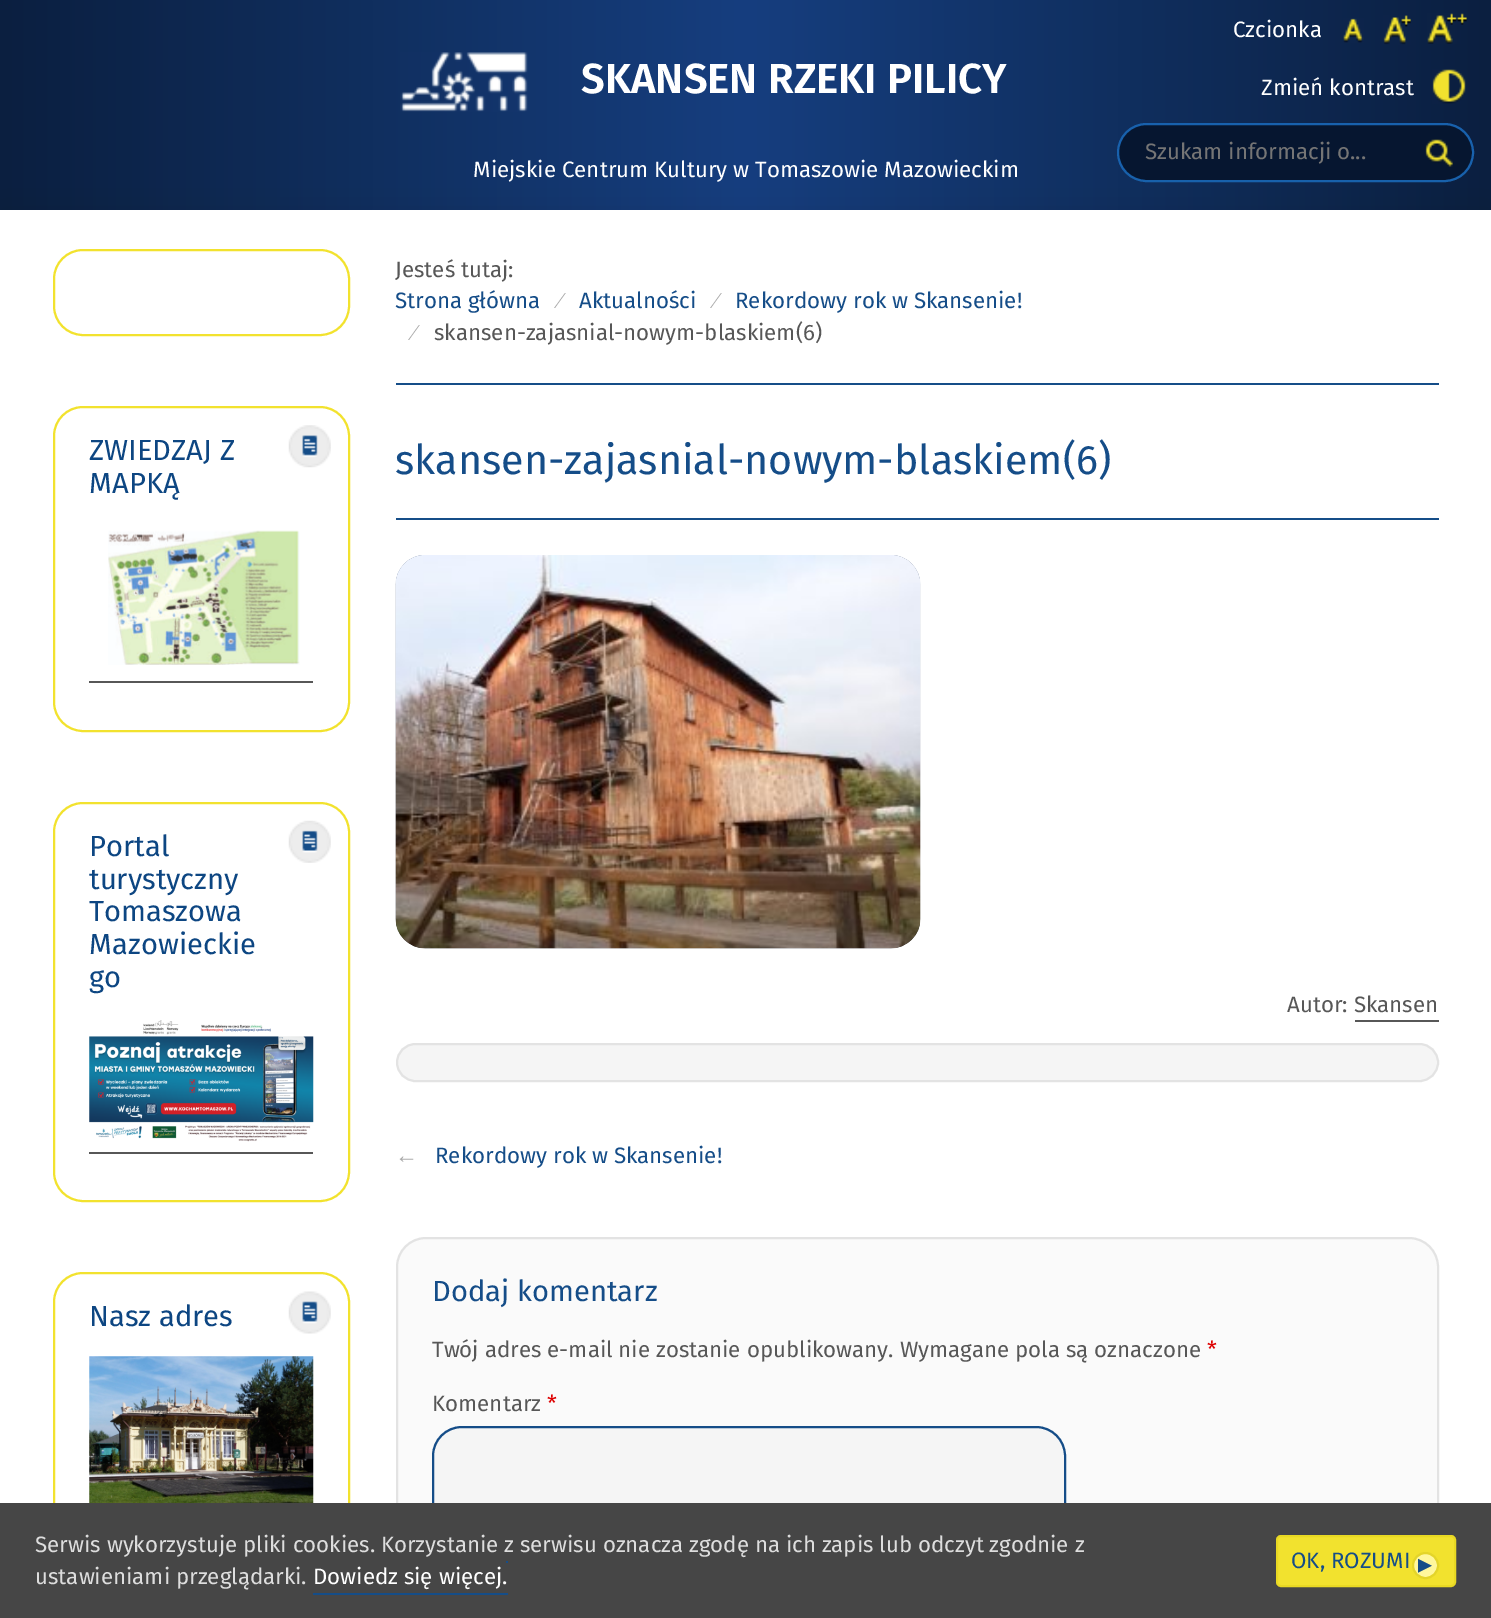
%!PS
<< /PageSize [1491 1618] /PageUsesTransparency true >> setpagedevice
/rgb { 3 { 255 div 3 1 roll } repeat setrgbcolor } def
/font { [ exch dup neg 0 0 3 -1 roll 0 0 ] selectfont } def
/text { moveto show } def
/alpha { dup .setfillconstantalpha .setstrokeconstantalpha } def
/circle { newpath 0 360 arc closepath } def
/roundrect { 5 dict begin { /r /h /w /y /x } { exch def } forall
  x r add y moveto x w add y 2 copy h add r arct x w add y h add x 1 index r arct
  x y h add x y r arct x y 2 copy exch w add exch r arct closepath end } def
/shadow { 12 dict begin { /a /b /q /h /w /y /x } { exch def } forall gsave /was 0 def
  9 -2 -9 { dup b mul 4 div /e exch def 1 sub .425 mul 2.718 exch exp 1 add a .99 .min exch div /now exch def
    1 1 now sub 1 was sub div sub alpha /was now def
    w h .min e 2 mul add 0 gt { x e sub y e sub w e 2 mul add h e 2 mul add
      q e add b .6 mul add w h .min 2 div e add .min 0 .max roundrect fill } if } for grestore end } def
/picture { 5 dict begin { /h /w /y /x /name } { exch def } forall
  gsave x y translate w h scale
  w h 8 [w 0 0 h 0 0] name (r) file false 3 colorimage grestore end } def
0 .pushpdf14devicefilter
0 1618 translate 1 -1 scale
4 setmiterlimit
255 255 255 rgb
0 0 1491 1618 rectfill
gsave 0 0 moveto 1491 0 rlineto 0 210 rlineto -1491 0 rlineto closepath clip newpath
<< /ShadingType 2 /ColorSpace /DeviceRGB /Coords [0 105 1491 105] /Extend [true true] /Function << /FunctionType 3 /Domain [0 1] /Functions [<< /FunctionType 2 /Domain [0 1] /C0 [0.043 0.122 0.251] /C1 [0.086 0.243 0.498] /N 1 >> << /FunctionType 2 /Domain [0 1] /C0 [0.086 0.243 0.498] /C1 [0.043 0.122 0.251] /N 1 >>] /Bounds [0.5] /Encode [0 1 0 1] >> >> shfill grestore
(img_01.rgb) 400 52 128 60 picture
(img_02.rgb) 1343 18 21 25 picture
(img_03.rgb) 1383 15 28 30 picture
(img_04.rgb) 1427 13 40 31 picture
(img_05.rgb) 1432 69 34 35 picture
6 22 48 rgb
1118 124 355 57 28.5 roundrect gsave fill grestore
24 97 173 rgb
2 setlinewidth
stroke
(img_06.rgb) 1425 139 28 28 picture
0 0 0 rgb
0 210 1491 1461 0 17.5 0.08 shadow
255 255 255 rgb
0 210 1491 1293 rectfill
242 226 46 rgb
54 250 295 85 29 roundrect stroke
54 407 295 324 29 roundrect stroke
(img_07.rgb) 288 425 43 43 picture
(img_08.rgb) 108 530 192 135 picture
87 87 87 rgb
89 681 224 2 rectfill
242 226 46 rgb
54 803 295 398 29 roundrect stroke
(img_09.rgb) 288 820 43 43 picture
(img_10.rgb) 89 1020 225 122 picture
87 87 87 rgb
89 1152 224 2 rectfill
242 226 46 rgb
54 1273 295 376 29 roundrect stroke
(img_11.rgb) 288 1291 43 43 picture
(img_12.rgb) 89 1356 225 147 picture
21 77 136 rgb
396 383 1043 2 rectfill
396 518 1043 2 rectfill
(img_13.rgb) 395 555 526 394 picture
(img_14.rgb) 395 555 526 394 picture
87 87 87 rgb
1355 1020 84 2 rectfill
245 245 245 rgb
397 1044 1041 37 18.5 roundrect gsave fill grestore
227 227 227 rgb
stroke
250 250 250 rgb
397 1238 1041 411 29 roundrect gsave fill grestore
227 227 227 rgb
stroke
245 245 245 rgb
433 1427 632 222 29 roundrect gsave fill grestore
21 77 136 rgb
stroke
70 70 70 rgb
0 1503 1491 115 rectfill
21 77 136 rgb
313 1593 195 2 rectfill
506 1561 2 2 rectfill
242 226 46 rgb
1277 1536 178 50 4 roundrect gsave fill grestore
233 217 35 rgb
stroke
255 247 156 rgb
1425.5 1565.5 12.5 circle gsave fill grestore
228 213 41 rgb
stroke
/FiraSans-SemiBold 42 font
255 255 255 rgb
(SKANSEN RZEKI PILICY) 581 93 text
/FiraSans-Regular 22.75 font
(Czcionka) 1233 37 text
(Zmień kontrast) 1261 95 text
117 117 117 rgb
(Szukam informacji o...) 1145 159 text
255 255 255 rgb
(Miejskie Centrum Kultury w Tomaszowie Mazowieckim) 473 177 text
/FiraSans-Regular 29.75 font
13 70 130 rgb
(ZWIEDZAJ Z) 89 460 text
(MAPKĄ) 89 493 text
(Portal) 89 856 text
(turystyczny) 89 889 text
(Tomaszowa) 89 921 text
(Mazowieckie) 89 954 text
(go) 89 987 text
(Nasz adres) 89 1326 text
/FiraSans-Regular 22.75 font
87 87 87 rgb
(Jesteś tutaj:) 395 277 text
21 77 136 rgb
(Strona główna) 395 308 text
/LiberationSerif-Regular 22.75 font
170 170 170 rgb
(∕) 558 308 text
/FiraSans-Regular 22.75 font
21 77 136 rgb
(Aktualności) 579 308 text
/LiberationSerif-Regular 22.75 font
170 170 170 rgb
(∕) 714 308 text
/FiraSans-Regular 22.75 font
21 77 136 rgb
(Rekordowy rok w Skansenie!) 735 308 text
/LiberationSerif-Regular 22.75 font
170 170 170 rgb
(∕) 412 340 text
/FiraSans-Regular 22.75 font
87 87 87 rgb
(skansen-zajasnial-nowym-blaskiem\(6\)) 434 340 text
/FiraSans-Regular 42 font
21 77 136 rgb
(skansen-zajasnial-nowym-blaskiem\(6\)) 395 474 text
/FiraSans-Regular 22.75 font
87 87 87 rgb
(Autor: Skansen) 1287 1012 text
/LiberationSerif-Regular 23 font
170 170 170 rgb
(←) 395 1163 text
/FiraSans-Regular 22.75 font
21 77 136 rgb
(Rekordowy rok w Skansenie!) 435 1163 text
/FiraSans-Regular 29.75 font
(Dodaj komentarz) 432 1301 text
/FiraSans-Regular 22.75 font
87 87 87 rgb
(Twój adres e-mail nie zostanie opublikowany. Wymagane pola są oznaczone) 432 1357 text
221 0 0 rgb
(*) 1207 1357 text
87 87 87 rgb
(Komentarz) 432 1411 text
221 0 0 rgb
(*) 547 1411 text
221 221 221 rgb
(Serwis wykorzystuje pliki cookies. Korzystanie z serwisu oznacza zgodę na ich zapis lub odczyt zgodnie z) 35 1552 text
(ustawieniami przeglądarki.) 35 1584 text
255 255 255 rgb
(Dowiedz się więcej.) 313 1584 text
21 77 136 rgb
(OK, ROZUMI) 1291 1568 text
/DejaVuSans-Regular 28 font
(▸) 1418 1573 text
.poppdf14devicefilter showpage
